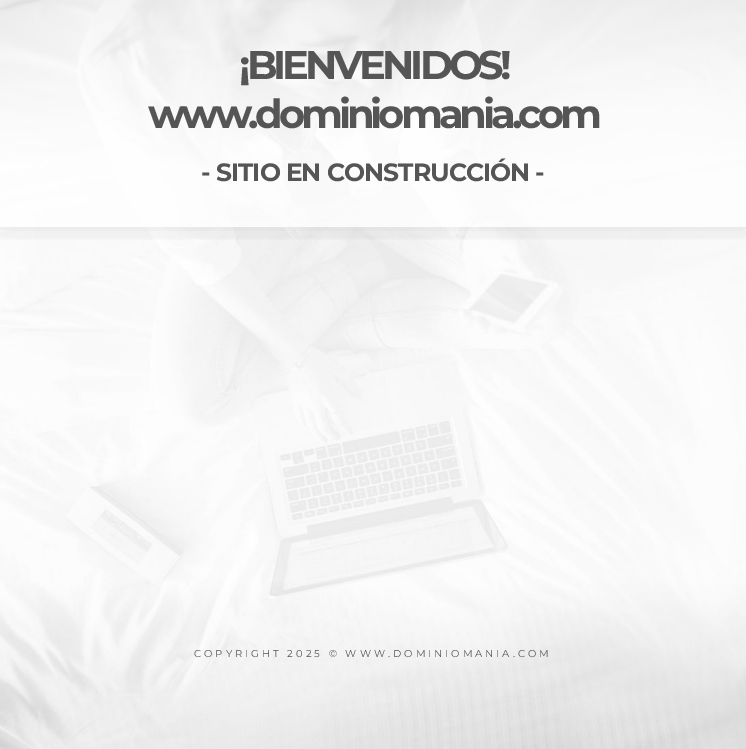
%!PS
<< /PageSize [746 749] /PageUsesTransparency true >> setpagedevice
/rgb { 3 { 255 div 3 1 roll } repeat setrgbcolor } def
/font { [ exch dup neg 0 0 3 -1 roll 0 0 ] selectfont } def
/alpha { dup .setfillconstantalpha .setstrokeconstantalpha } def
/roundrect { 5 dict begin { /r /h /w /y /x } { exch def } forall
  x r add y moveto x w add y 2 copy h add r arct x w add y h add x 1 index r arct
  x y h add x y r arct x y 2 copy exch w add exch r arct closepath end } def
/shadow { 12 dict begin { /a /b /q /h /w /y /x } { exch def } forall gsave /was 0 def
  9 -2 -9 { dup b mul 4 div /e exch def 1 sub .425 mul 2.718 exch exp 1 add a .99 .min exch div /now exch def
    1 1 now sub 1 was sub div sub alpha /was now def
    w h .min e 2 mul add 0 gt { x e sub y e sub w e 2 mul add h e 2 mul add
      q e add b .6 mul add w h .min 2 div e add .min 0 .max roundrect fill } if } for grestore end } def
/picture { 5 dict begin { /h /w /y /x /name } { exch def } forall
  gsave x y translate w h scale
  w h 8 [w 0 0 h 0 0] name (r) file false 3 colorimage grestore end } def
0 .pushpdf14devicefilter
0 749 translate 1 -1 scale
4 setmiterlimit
255 255 255 rgb
0 0 746 749 rectfill
(img_01.rgb) 0 0 746 749 picture
gsave
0 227 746 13 rectclip
0 0 0 rgb
0 0 746 227 0 15 0.1 shadow
grestore
0.7 alpha
0 0 746 227 rectfill
/Montserrat-Bold 40 font
1 alpha
85 85 85 rgb
239 79 moveto -4 0 (¡BIENVENIDOS!) ashow
148 128 moveto -4 0 (www.dominiomania.com) ashow
/Montserrat-Bold 25 font
201 181 moveto -1 0 (- SITIO EN CONSTRUCCIÓN -) ashow
/Montserrat-Regular 10 font
194 657 moveto 3 0 (COPYRIGHT 2025 © WWW.DOMINIOMANIA.COM) ashow
.poppdf14devicefilter showpage
